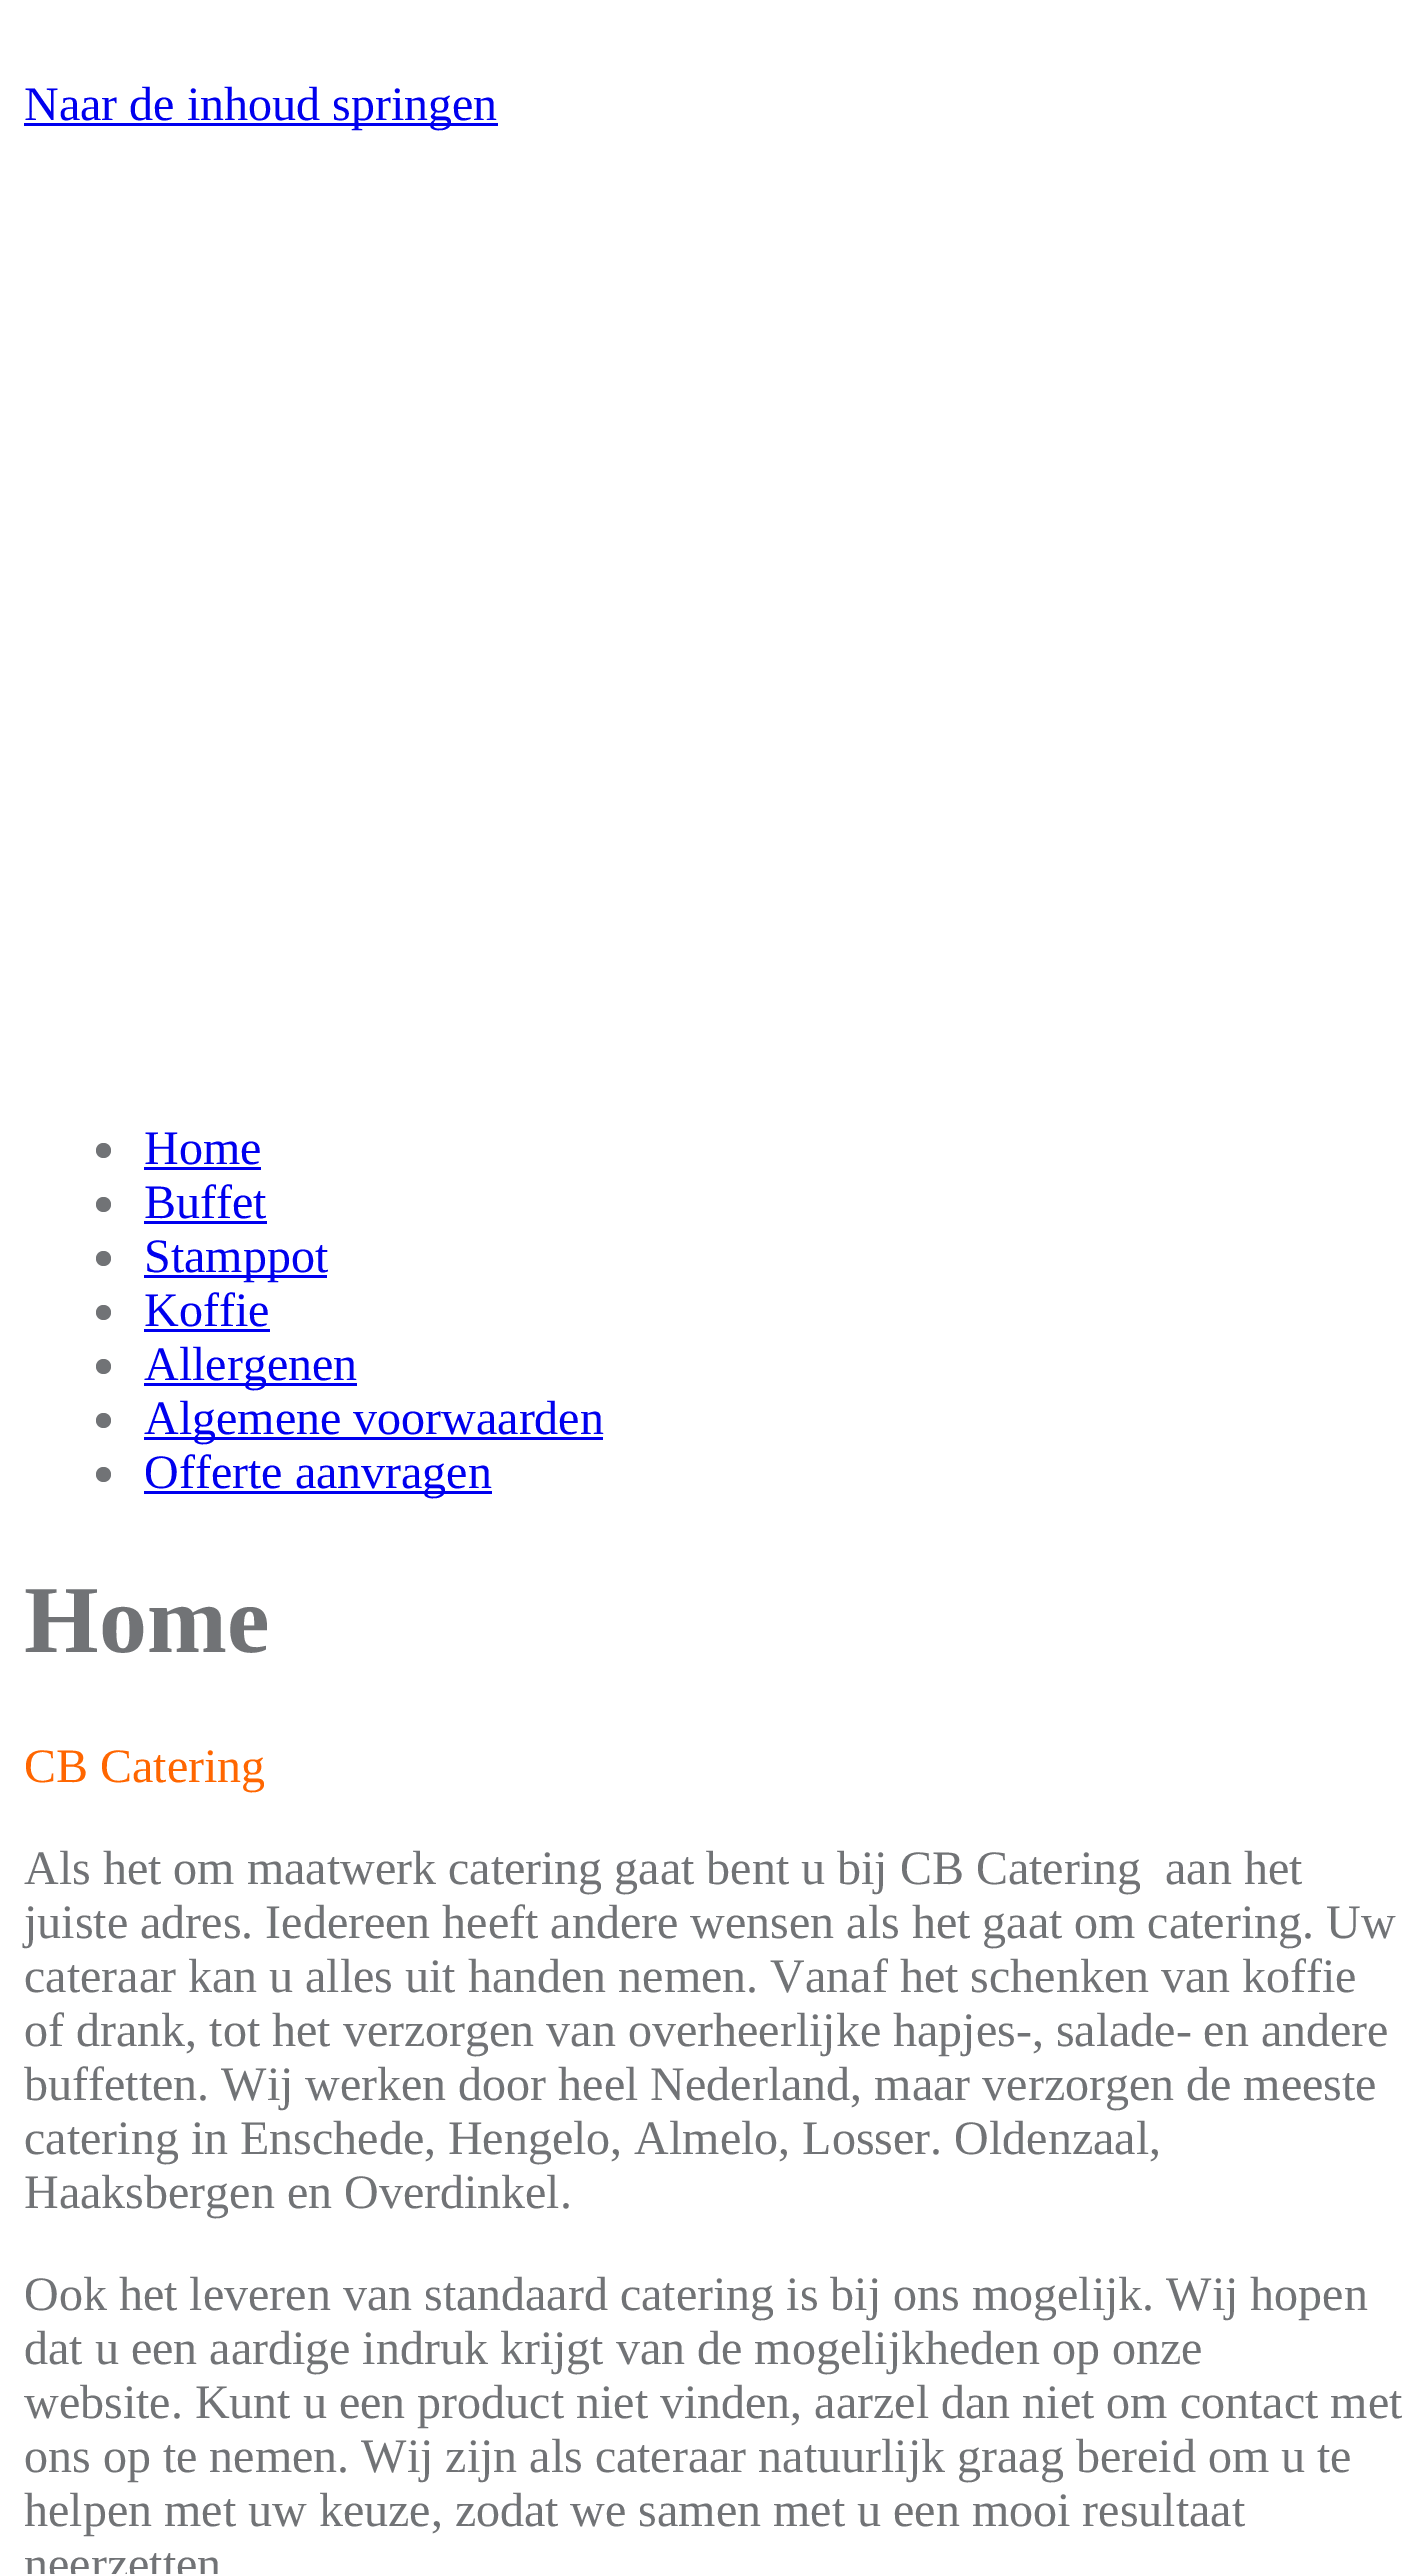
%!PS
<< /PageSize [1428 2574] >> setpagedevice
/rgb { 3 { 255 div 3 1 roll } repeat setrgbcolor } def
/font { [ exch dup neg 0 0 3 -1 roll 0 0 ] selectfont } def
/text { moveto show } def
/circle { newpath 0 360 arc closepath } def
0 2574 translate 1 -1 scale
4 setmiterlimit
255 255 255 rgb
0 0 1428 2574 rectfill
0 0 238 rgb
24 123 474 3 rectfill
113 115 118 rgb
103.5 1150.5 7.5 circle fill
0 0 238 rgb
144 1167 117 3 rectfill
113 115 118 rgb
103.5 1204.5 7.5 circle fill
0 0 238 rgb
144 1221 123 3 rectfill
113 115 118 rgb
103.5 1258.5 7.5 circle fill
0 0 238 rgb
144 1275 183 3 rectfill
113 115 118 rgb
103.5 1312.5 7.5 circle fill
0 0 238 rgb
144 1329 126 3 rectfill
113 115 118 rgb
103.5 1366.5 7.5 circle fill
0 0 238 rgb
144 1383 213 3 rectfill
113 115 118 rgb
103.5 1420.5 7.5 circle fill
0 0 238 rgb
144 1437 459 3 rectfill
113 115 118 rgb
103.5 1474.5 7.5 circle fill
0 0 238 rgb
144 1491 348 3 rectfill
/LiberationSerif-Regular 48 font
(Naar de inhoud springen) 24 120 text
(Home) 144 1164 text
(Buffet) 144 1218 text
(Stamppot) 144 1272 text
(Koffie) 144 1326 text
(Allergenen) 144 1380 text
(Algemene voorwaarden) 144 1434 text
(Offerte aanvragen) 144 1488 text
/LiberationSerif-Bold 96 font
113 115 118 rgb
(Home) 24 1652 text
/LiberationSerif-Regular 48 font
255 102 0 rgb
(CB Catering) 24 1782 text
113 115 118 rgb
(Als het om maatwerk catering gaat bent u bij CB Catering  aan het) 24 1884 text
(juiste adres. Iedereen heeft andere wensen als het gaat om catering. Uw) 24 1938 text
(cateraar kan u alles uit handen nemen. Vanaf het schenken van koffie) 24 1992 text
(of drank, tot het verzorgen van overheerlijke hapjes-, salade- en andere) 24 2046 text
(buffetten. Wij werken door heel Nederland, maar verzorgen de meeste) 24 2100 text
(catering in Enschede, Hengelo, Almelo, Losser. Oldenzaal,) 24 2154 text
(Haaksbergen en Overdinkel.) 24 2208 text
(Ook het leveren van standaard catering is bij ons mogelijk. Wij hopen) 24 2310 text
(dat u een aardige indruk krijgt van de mogelijkheden op onze) 24 2364 text
(website. Kunt u een product niet vinden, aarzel dan niet om contact met) 24 2418 text
(ons op te nemen. Wij zijn als cateraar natuurlijk graag bereid om u te) 24 2472 text
(helpen met uw keuze, zodat we samen met u een mooi resultaat) 24 2526 text
(neerzetten) 24 2580 text
showpage
